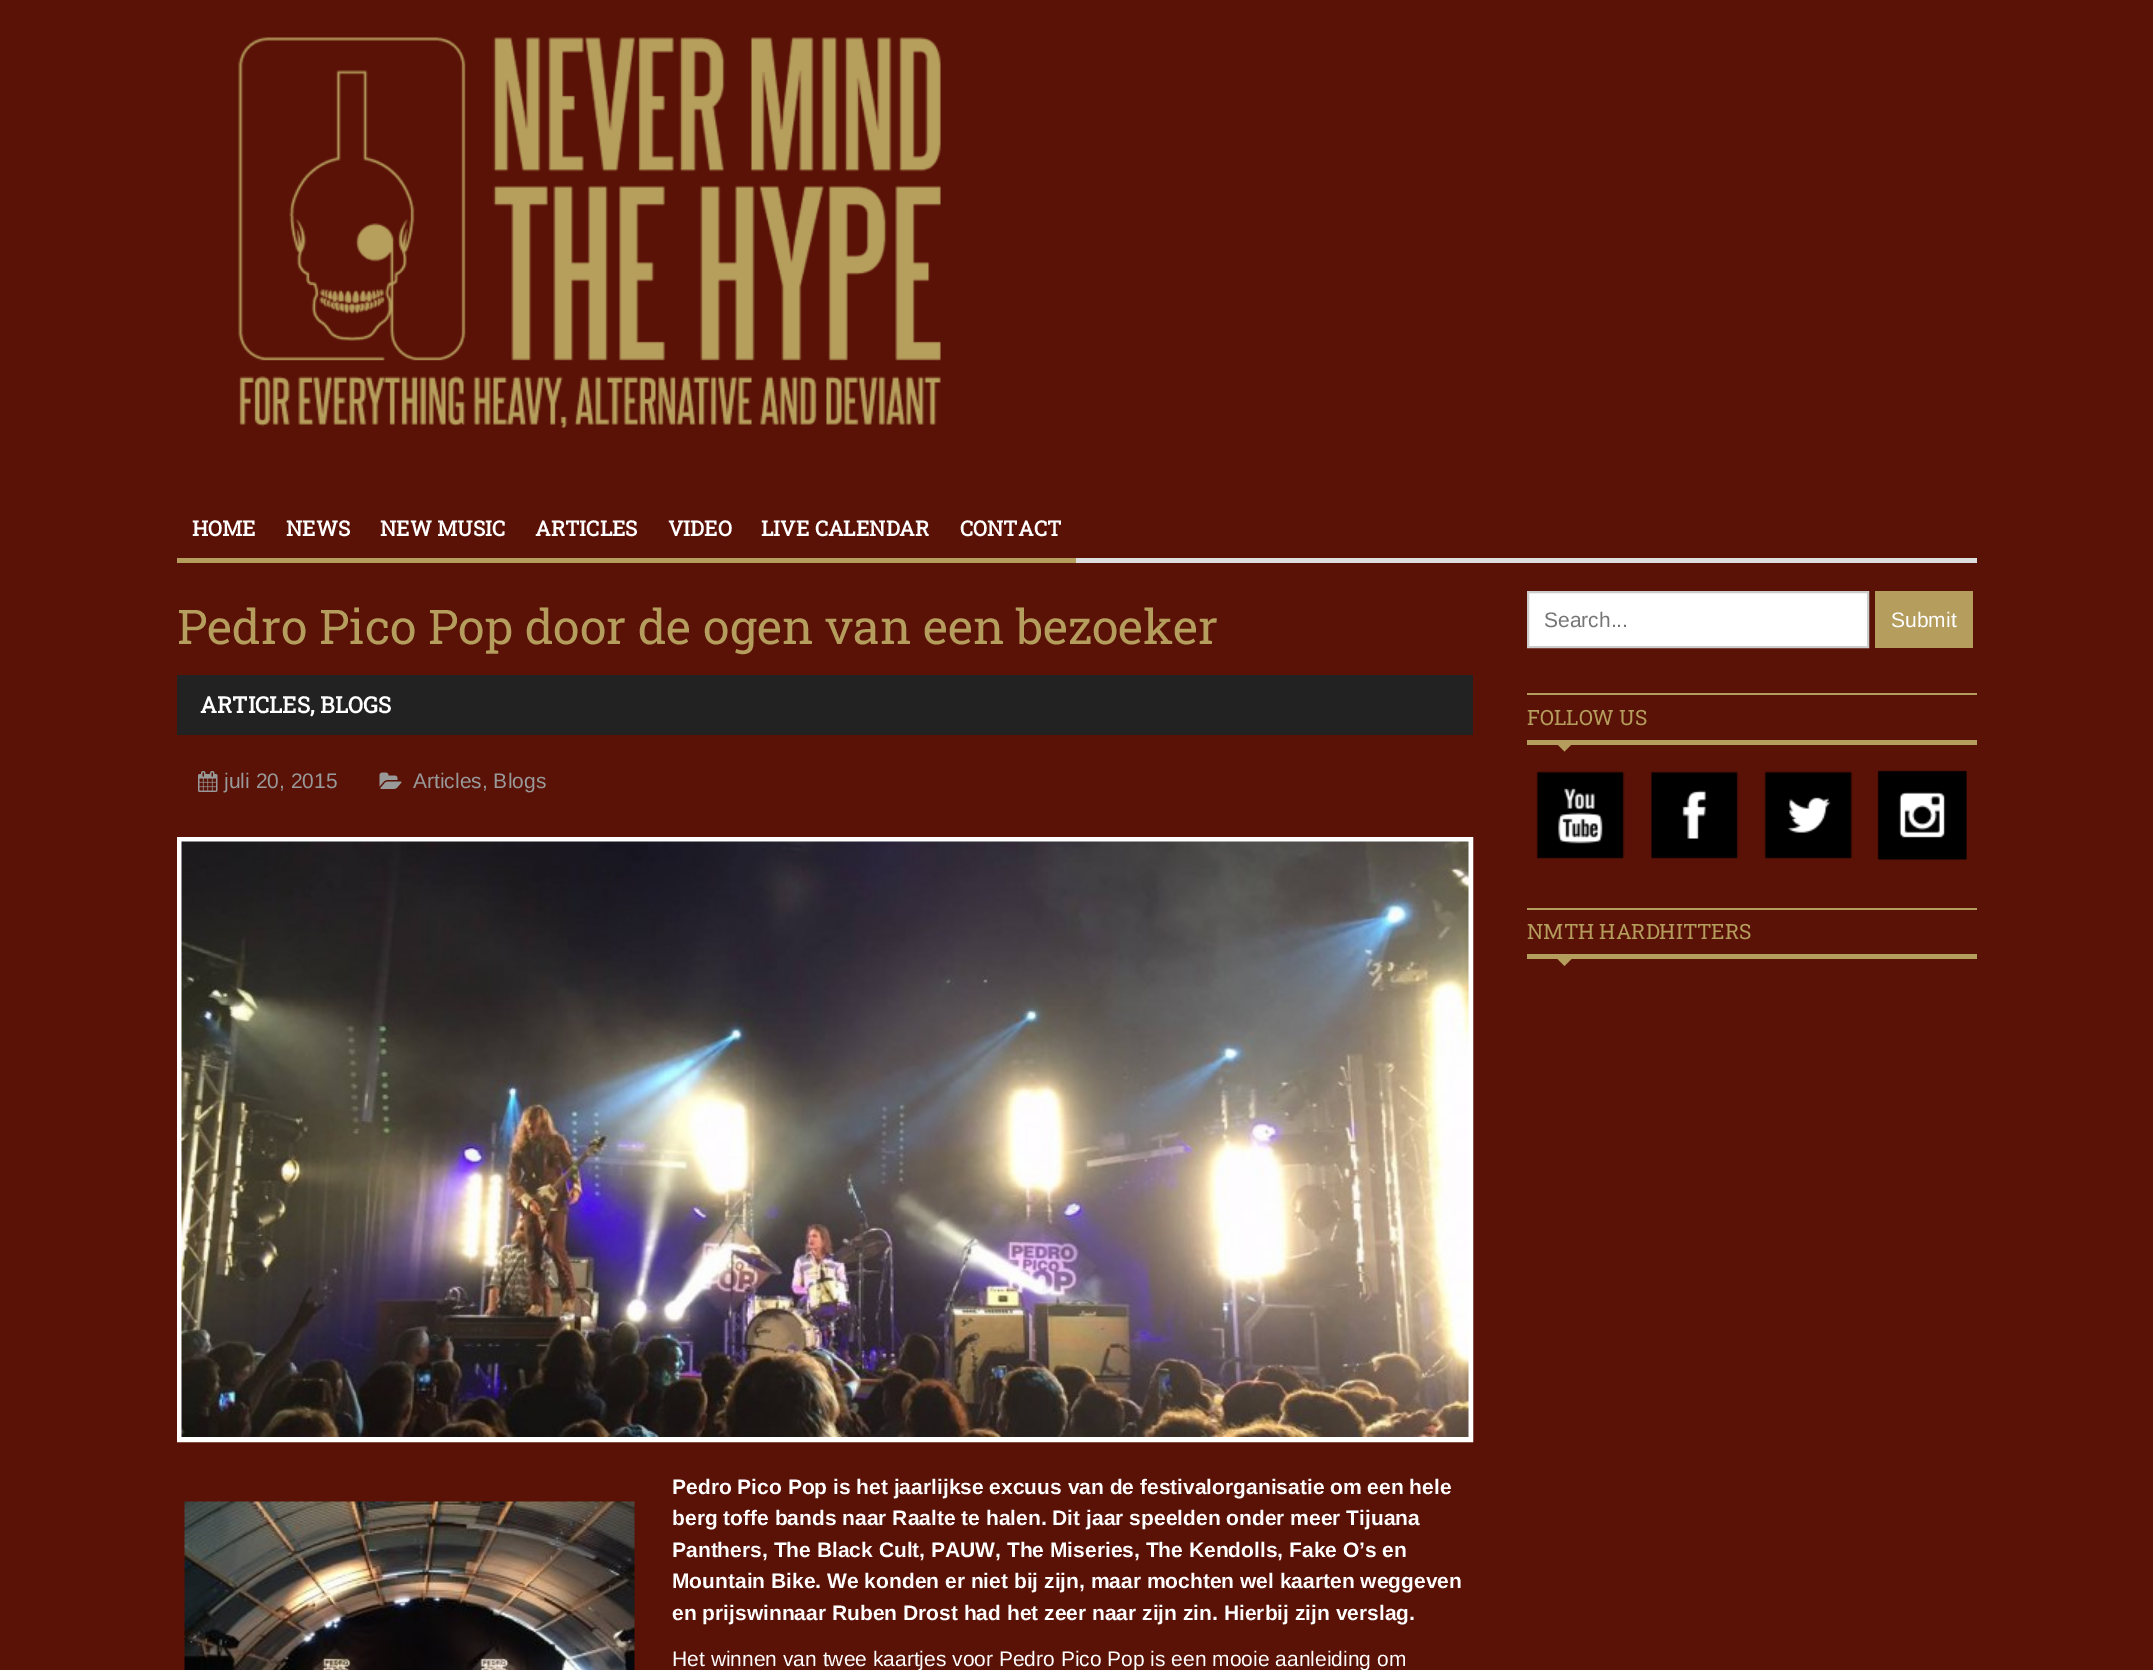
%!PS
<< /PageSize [2153 1670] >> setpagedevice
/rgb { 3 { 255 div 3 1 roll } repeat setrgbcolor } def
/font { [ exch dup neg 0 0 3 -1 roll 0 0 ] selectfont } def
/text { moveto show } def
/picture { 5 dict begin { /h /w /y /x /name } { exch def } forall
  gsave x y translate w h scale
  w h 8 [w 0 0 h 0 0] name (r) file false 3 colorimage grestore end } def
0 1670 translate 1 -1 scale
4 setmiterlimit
90 17 6 rgb
0 0 2153 1670 rectfill
(img_01.rgb) 238 37 703 391 picture
221 221 221 rgb
1076 558 901 5 rectfill
181 157 93 rgb
177 558 899 5 rectfill
34 34 34 rgb
177 675 1296 60 rectfill
(img_02.rgb) 198 771 20 21 picture
(img_03.rgb) 379 772 23 17 picture
255 255 255 rgb
5 setlinewidth
179.5 839.5 1291 600 rectstroke
(img_04.rgb) 181 841 1288 596 picture
(img_05.rgb) 184 1501 451 169 picture
1528 592 moveto 340 0 rlineto 0 55 rlineto -340 0 rlineto closepath gsave fill grestore
204 204 204 rgb
2 setlinewidth
stroke
181 157 93 rgb
1875 591 98 57 rectfill
1527 693 450 2 rectfill
1527 740 450 5 rectfill
1557 744 moveto 15 0 rlineto -7.5 7.5 rlineto closepath fill
(img_06.rgb) 1536 771 89 88 picture
(img_07.rgb) 1650 771 89 88 picture
(img_08.rgb) 1764 771 89 88 picture
(img_09.rgb) 1877 770 90 90 picture
1527 908 450 2 rectfill
1527 954 450 5 rectfill
1557 958.5 moveto 15 0 rlineto -7.5 7.5 rlineto closepath fill
/RobotoSlab-Bold 21 font
255 255 255 rgb
(HOME) 192 536 text
(NEWS) 286 536 text
(NEW MUSIC) 380 536 text
(ARTICLES) 535 536 text
(VIDEO) 668 536 text
(LIVE CALENDAR) 761 536 text
(CONTACT) 960 536 text
/RobotoSlab-Regular 48 font
181 157 93 rgb
(Pedro Pico Pop door de ogen van een bezoeker) 177 644 text
/RobotoSlab-Bold 22.5 font
255 255 255 rgb
(ARTICLES, BLOGS) 200 713 text
/LiberationSans-Regular 21 font
153 153 153 rgb
(juli 20, 2015) 224 788 text
(Articles, Blogs) 413 788 text
/LiberationSans-Bold 21 font
255 255 255 rgb
(Pedro Pico Pop is het jaarlijkse excuus van de festivalorganisatie om een hele) 672 1494 text
(berg toffe bands naar Raalte te halen. Dit jaar speelden onder meer Tijuana) 672 1525 text
(Panthers, The Black Cult, PAUW, The Miseries, The Kendolls, Fake O’s en) 672 1557 text
(Mountain Bike. We konden er niet bij zijn, maar mochten wel kaarten weggeven) 672 1588 text
(en prijswinnaar Ruben Drost had het zeer naar zijn zin. Hierbij zijn verslag.) 672 1620 text
/LiberationSans-Regular 21 font
(Het winnen van twee kaartjes voor Pedro Pico Pop is een mooie aanleiding om) 672 1666 text
117 117 117 rgb
(Search...) 1544 627 text
255 255 255 rgb
(Submit) 1891 627 text
/RobotoSlab-Regular 21 font
181 157 93 rgb
(FOLLOW US) 1527 725 text
(NMTH HARDHITTERS) 1527 939 text
showpage
